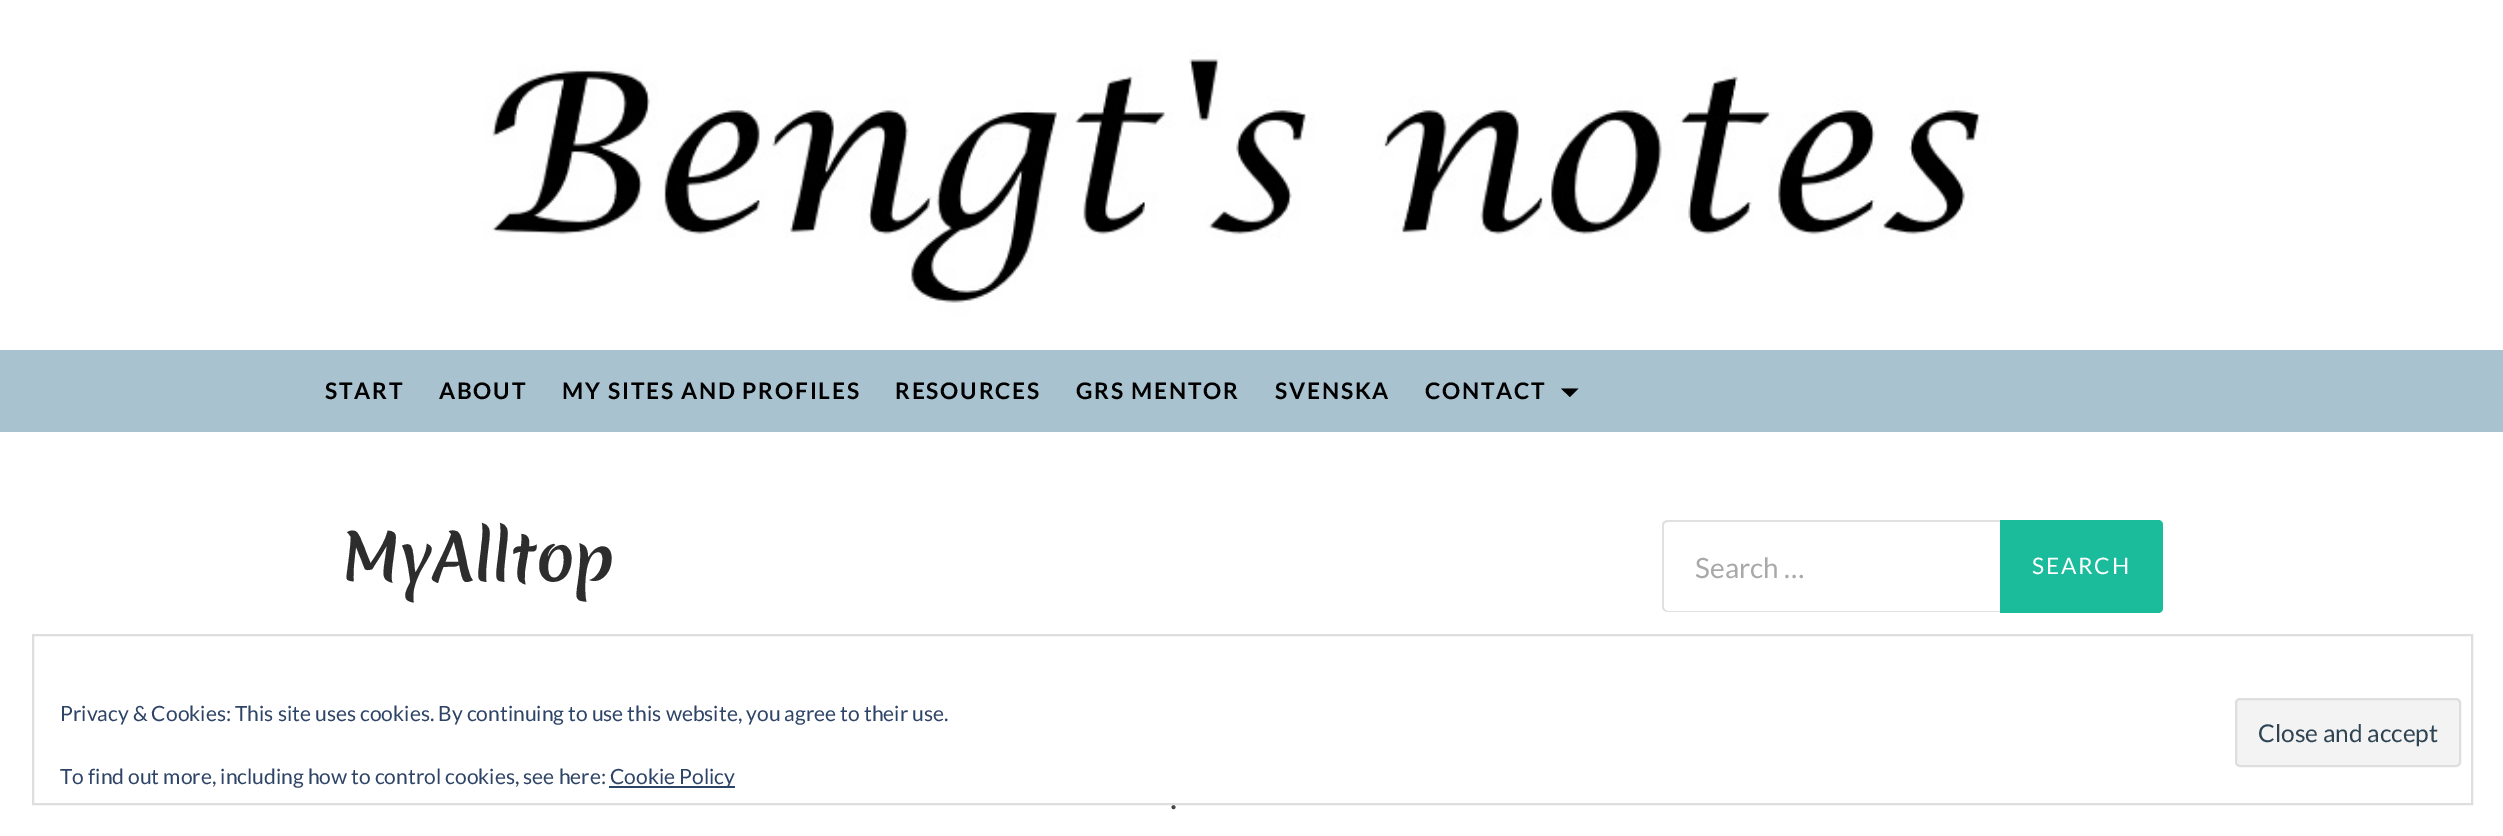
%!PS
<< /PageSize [2503 836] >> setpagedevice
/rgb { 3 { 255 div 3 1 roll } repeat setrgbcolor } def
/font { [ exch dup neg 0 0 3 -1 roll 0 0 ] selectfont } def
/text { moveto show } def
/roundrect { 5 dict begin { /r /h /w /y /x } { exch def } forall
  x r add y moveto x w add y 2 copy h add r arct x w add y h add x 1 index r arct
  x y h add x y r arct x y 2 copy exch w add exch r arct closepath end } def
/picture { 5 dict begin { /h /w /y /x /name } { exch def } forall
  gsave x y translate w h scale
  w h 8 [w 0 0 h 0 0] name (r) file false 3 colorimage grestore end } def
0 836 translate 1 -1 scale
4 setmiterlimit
255 255 255 rgb
0 0 2503 836 rectfill
(img_01.rgb) 0 0 2503 350 picture
168 194 208 rgb
0 350 2503 82 rectfill
0 0 0 rgb
1561 388.5 moveto 17.5 0 rlineto -8.5 8.5 rlineto closepath fill
225 225 227 rgb
1668 520 moveto 332 0 rlineto 0 92 rlineto -332 0 rlineto -3 0 -6 -2 -6 -5 rcurveto 0 -82 rlineto 0 -3 3 -5 6 -5 rcurveto closepath 1668 522 moveto 332 0 rlineto 0 89 rlineto -332 0 rlineto -2 0 -4 -2 -4 -4 rcurveto 0 -82 rlineto 0 -2 2 -3 4 -3 rcurveto closepath eofill
26 188 156 rgb
2000 520 moveto 158 0 rlineto 3 0 5 2 5 5 rcurveto 0 83 rlineto 0 3 -2 5 -5 5 rcurveto -158 0 rlineto closepath fill
222 222 222 rgb
2 setlinewidth
33 635 2439 169 rectstroke
243 243 243 rgb
2236 699 224 67 4 roundrect gsave fill grestore
222 222 222 rgb
stroke
46 68 103 rgb
609 786 126 2 rectfill
/Lato-Bold 22.75 font
0 0 0 rgb
325 399 moveto 1.75 0 (START) ashow
439 399 moveto 1.75 0 (ABOUT) ashow
562 399 moveto 1.75 0 (MY SITES AND PROFILES) ashow
895 399 moveto 1.75 0 (RESOURCES) ashow
1076 399 moveto 1.75 0 (GRS MENTOR) ashow
1275 399 moveto 1.75 0 (SVENSKA) ashow
1425 399 moveto 1.75 0 (CONTACT) ashow
/Merienda-Bold 63 font
45 45 45 rgb
(MyAlltop) 342 581 text
/Lato-Regular 33 font
68 68 68 rgb
(.) 1170 809 text
/Lato-Regular 28 font
169 169 169 rgb
(Search …) 1695 578 text
/Lato-Regular 22.75 font
255 255 255 rgb
2032 574 moveto 1.75 0 (SEARCH) ashow
/Lato-Regular 21 font
46 68 103 rgb
(Privacy & Cookies: This site uses cookies. By continuing to use this website, you agree to their use.) 60 721 text
/Lato-Regular 24.5 font
46 68 83 rgb
(Close and accept) 2258 742 text
/Lato-Regular 21 font
46 68 103 rgb
(To find out more, including how to control cookies, see here:) 60 784 text
(Cookie Policy) 610 784 text
showpage
